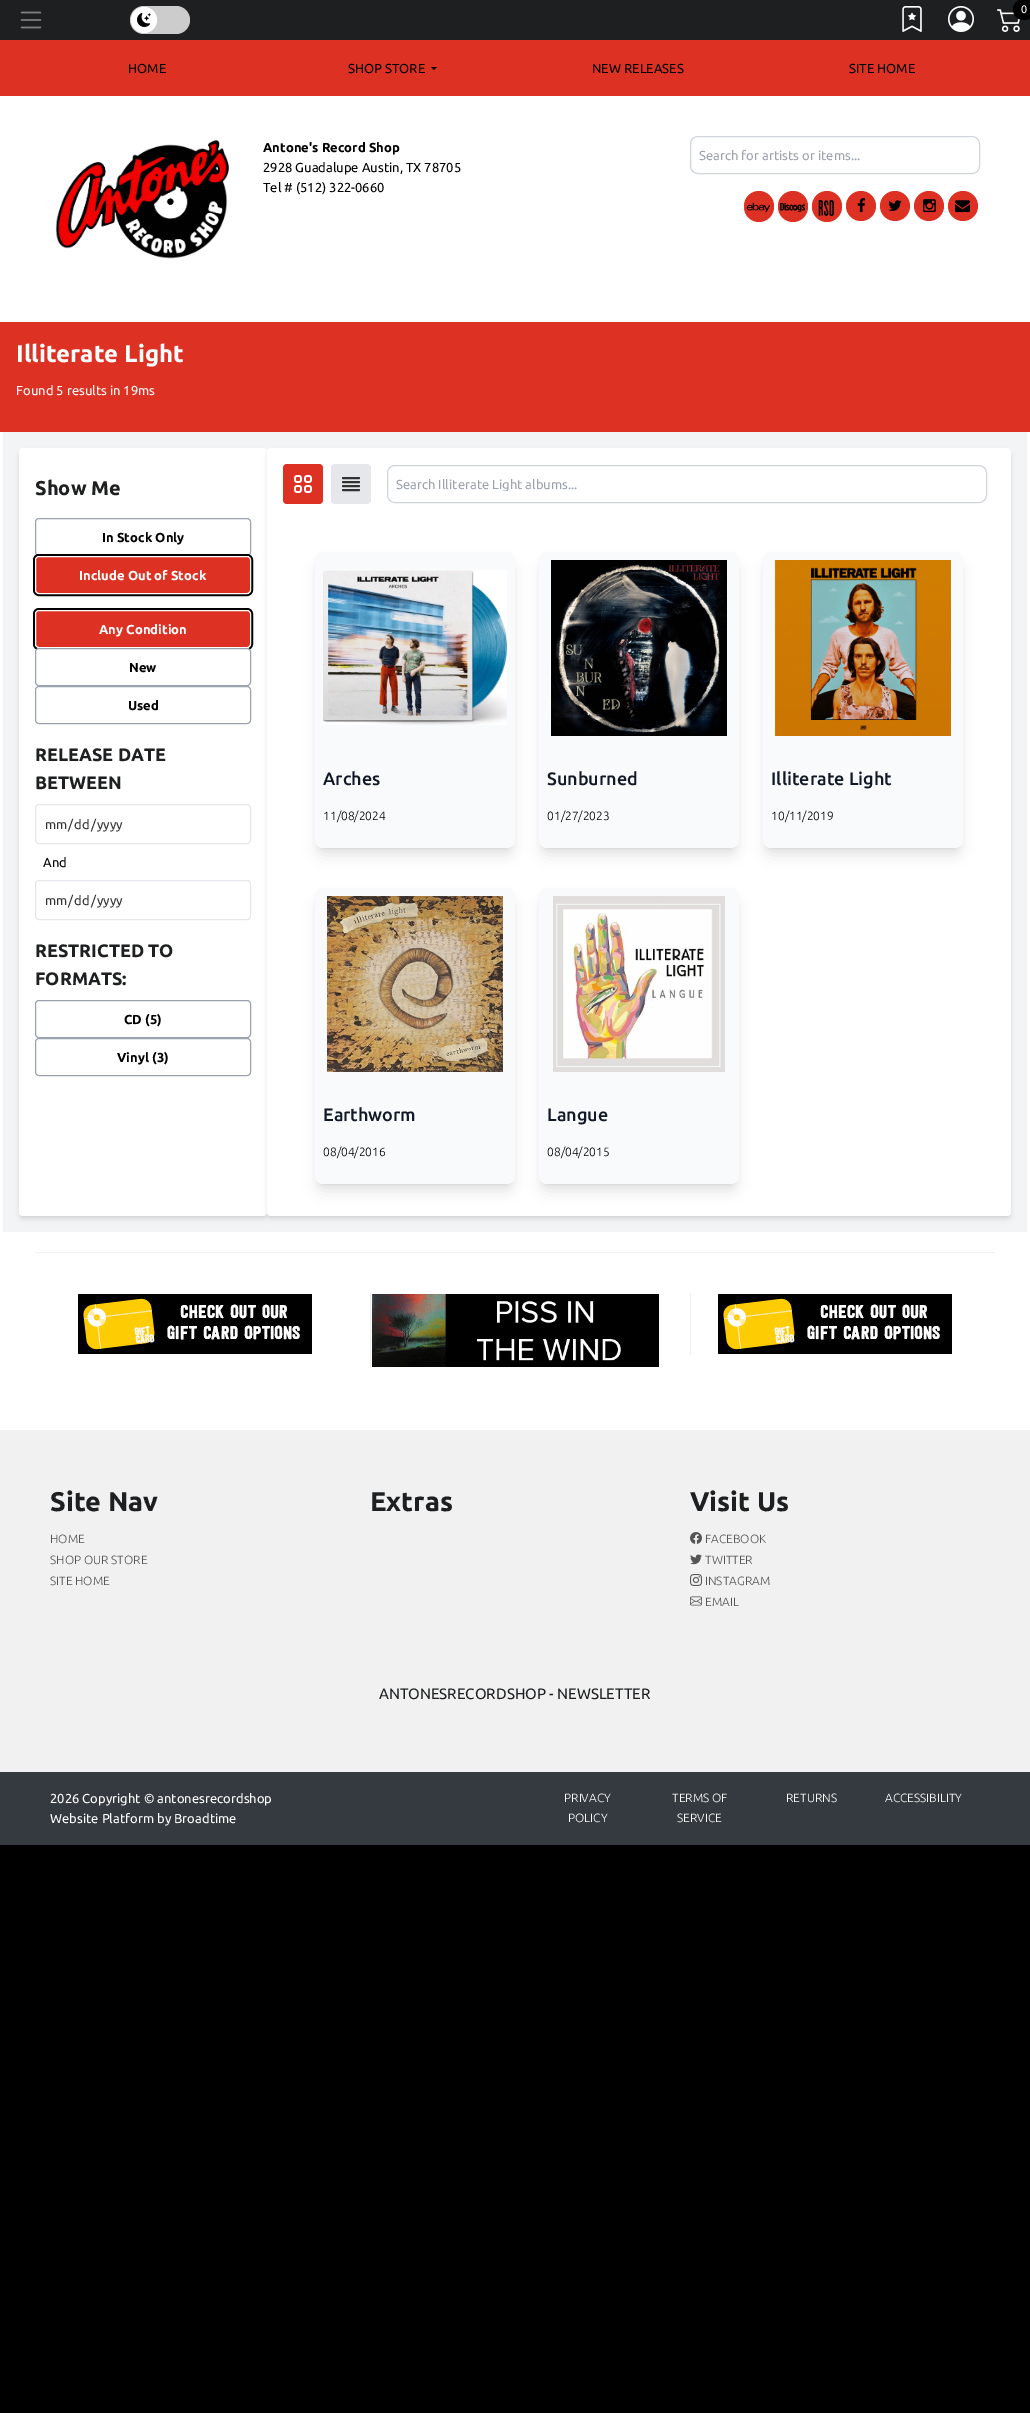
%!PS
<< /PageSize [1030 2413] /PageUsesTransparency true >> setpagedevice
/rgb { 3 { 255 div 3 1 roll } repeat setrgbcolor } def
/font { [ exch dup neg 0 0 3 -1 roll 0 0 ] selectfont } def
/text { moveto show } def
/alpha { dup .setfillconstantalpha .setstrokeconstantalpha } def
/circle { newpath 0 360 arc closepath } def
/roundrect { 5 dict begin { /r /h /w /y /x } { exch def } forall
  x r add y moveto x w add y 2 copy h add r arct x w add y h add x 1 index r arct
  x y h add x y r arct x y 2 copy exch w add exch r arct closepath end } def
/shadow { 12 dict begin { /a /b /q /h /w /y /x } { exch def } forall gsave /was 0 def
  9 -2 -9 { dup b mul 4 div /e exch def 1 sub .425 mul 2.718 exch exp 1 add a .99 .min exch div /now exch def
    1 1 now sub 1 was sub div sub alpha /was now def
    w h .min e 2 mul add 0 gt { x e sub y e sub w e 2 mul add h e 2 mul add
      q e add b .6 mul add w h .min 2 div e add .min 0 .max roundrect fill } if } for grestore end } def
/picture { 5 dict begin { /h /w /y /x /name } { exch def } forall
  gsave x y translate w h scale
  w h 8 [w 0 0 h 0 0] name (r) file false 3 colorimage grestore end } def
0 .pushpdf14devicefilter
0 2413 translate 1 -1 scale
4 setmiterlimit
0 0 0 rgb
0 0 1030 2413 rectfill
255 255 255 rgb
0 96 1030 1334 rectfill
29 31 32 rgb
0 0 1030 40 rectfill
(img_01.rgb) 20 11 22 18 picture
204 204 204 rgb
130 6 60 28 14 roundrect fill
255 255 255 rgb
144 20 13 circle fill
(img_02.rgb) 137 13 14 14 picture
(img_03.rgb) 902 6 20 26 picture
(img_04.rgb) 948 6 26 26 picture
(img_05.rgb) 997 9 23 23 picture
0 0 0 rgb
1013 -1 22 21 10.5 roundrect fill
220 49 35 rgb
0 40 1030 56 rectfill
0 0 0 rgb
431 67 moveto 6 0 rlineto -3 3 rlineto closepath fill
(img_06.rgb) 55 139 174 120 picture
209 213 219 rgb
690.5 136.5 289 37 7.5 roundrect stroke
220 49 35 rgb
744 191 30 31 15 roundrect fill
(img_07.rgb) 746 202 25 11 picture
778 191 30 31 15 roundrect fill
(img_08.rgb) 780 203 25 9 picture
812 191 30 31 15 roundrect fill
(img_09.rgb) 818 200 16 16 picture
861 206 15 circle fill
(img_10.rgb) 857 198 9 15 picture
895 206 15 circle fill
(img_11.rgb) 888 200 14 11 picture
929 206 15 circle fill
(img_12.rgb) 923 199 13 14 picture
963 206 15 circle fill
(img_13.rgb) 955 200 15 13 picture
0 322 1030 110 rectfill
243 244 246 rgb
3 432 1024 800 rectfill
0 0 0 rgb
21 452 244 764 2 2 0.1 shadow
20 453 246 766 3 3 0.1 shadow
255 255 255 rgb
19 448 248 768 4 roundrect fill
156 163 175 rgb
35.5 518.5 215 37 3.5 roundrect stroke
0 0 0 rgb
2 setlinewidth
34 555 218 40 5 roundrect stroke
220 49 35 rgb
35.5 556.5 215 37 3.5 roundrect gsave fill grestore
255 255 255 rgb
1 setlinewidth
stroke
0 0 0 rgb
2 setlinewidth
34 609 218 40 5 roundrect stroke
220 49 35 rgb
35.5 610.5 215 37 3.5 roundrect gsave fill grestore
255 255 255 rgb
1 setlinewidth
stroke
35.5 648.5 215 37 3.5 roundrect gsave fill grestore
156 163 175 rgb
stroke
35.5 686.5 215 37 3.5 roundrect stroke
229 231 235 rgb
35.5 804.5 215 39 3.5 roundrect stroke
35.5 880.5 215 39 3.5 roundrect stroke
156 163 175 rgb
35.5 1000.5 215 37 3.5 roundrect stroke
35.5 1038.5 215 37 3.5 roundrect stroke
0 0 0 rgb
269 452 740 764 2 2 0.1 shadow
268 453 742 766 3 3 0.1 shadow
255 255 255 rgb
267 448 744 768 4 roundrect fill
220 49 35 rgb
283 464 40 40 4 roundrect fill
(img_14.rgb) 294 475 18 18 picture
229 231 235 rgb
331 464 40 40 4 roundrect fill
50 50 50 rgb
2 setlinewidth
1 setlinecap
1 setlinejoin
343 478 moveto 16 0 rlineto 343 482 moveto 16 0 rlineto 343 486 moveto 16 0 rlineto 343 490 moveto 16 0 rlineto stroke
209 213 219 rgb
1 setlinewidth
0 setlinecap
0 setlinejoin
387.5 465.5 599 37 7.5 roundrect stroke
0 0 0 rgb
319 560 192 288 4 3 0.1 shadow
318 565 194 290 5 7.5 0.1 shadow
249 250 251 rgb
315 552 200 296 8 roundrect fill
(img_15.rgb) 323 570 184 155 picture
0 0 0 rgb
543 560 192 288 4 3 0.1 shadow
542 565 194 290 5 7.5 0.1 shadow
249 250 251 rgb
539 552 200 296 8 roundrect fill
(img_16.rgb) 551 560 176 176 picture
0 0 0 rgb
767 560 192 288 4 3 0.1 shadow
766 565 194 290 5 7.5 0.1 shadow
249 250 251 rgb
763 552 200 296 8 roundrect fill
(img_17.rgb) 775 560 176 176 picture
0 0 0 rgb
319 896 192 288 4 3 0.1 shadow
318 901 194 290 5 7.5 0.1 shadow
249 250 251 rgb
315 888 200 296 8 roundrect fill
(img_18.rgb) 327 896 176 176 picture
0 0 0 rgb
543 896 192 288 4 3 0.1 shadow
542 901 194 290 5 7.5 0.1 shadow
249 250 251 rgb
539 888 200 296 8 roundrect fill
(img_19.rgb) 553 896 172 176 picture
241 241 241 rgb
35 1252 960 1 rectfill
(img_20.rgb) 78 1294 234 60 picture
238 238 238 rgb
370 1293 1 75 rectfill
(img_21.rgb) 372 1294 287 73 picture
690 1293 1 62 rectfill
(img_20.rgb) 718 1294 234 60 picture
241 241 241 rgb
0 1430 1030 342 rectfill
(img_22.rgb) 690 1532 12 12 picture
(img_23.rgb) 690 1554 12 11 picture
(img_24.rgb) 690 1574 12 12 picture
(img_25.rgb) 690 1596 12 10 picture
52 58 64 rgb
0 1772 1030 73 rectfill
/Ubuntu-Regular 11 font
255 255 255 rgb
(0) 1021 13 text
/Ubuntu-Regular 13 font
0 0 0 rgb
(HOME) 128 73 text
(SHOP STORE) 348 73 text
(NEW RELEASES) 592 73 text
(SITE HOME) 849 73 text
/Ubuntu-Bold 13 font
(Antone's Record Shop) 263 152 text
/Ubuntu-Regular 13 font
(2928 Guadalupe Austin, TX 78705) 263 172 text
(Tel # \(512\) 322-0660) 263 192 text
156 163 175 rgb
(Search for artists or items...) 699 160 text
/Ubuntu-Bold 24 font
255 255 255 rgb
(Illiterate Light) 16 362 text
/Ubuntu-Regular 13 font
(Found 5 results in 19ms) 16 395 text
/Ubuntu-Bold 20 font
29 31 32 rgb
(Show Me) 35 495 text
/Ubuntu-Bold 13 font
0 0 0 rgb
(In Stock Only) 102 542 text
255 255 255 rgb
(Include Out of Stock) 79 580 text
(Any Condition) 99 634 text
0 0 0 rgb
(New) 129 672 text
(Used) 128 710 text
/Ubuntu-Bold 18 font
29 31 32 rgb
(RELEASE DATE) 35 761 text
(BETWEEN) 35 789 text
/Ubuntu-Regular 13 font
50 50 50 rgb
(mm) 45 829 text
(/) 68 829 text
(dd) 74 829 text
(/) 91 829 text
(yyyy) 97 829 text
0 0 0 rgb
(And) 43 867 text
50 50 50 rgb
(mm) 45 905 text
(/) 68 905 text
(dd) 74 905 text
(/) 91 905 text
(yyyy) 97 905 text
/Ubuntu-Bold 18 font
29 31 32 rgb
(RESTRICTED TO) 35 957 text
(FORMATS:) 35 985 text
/Ubuntu-Bold 13 font
0 0 0 rgb
(CD \(5\)) 124 1024 text
(Vinyl \(3\)) 117 1062 text
gsave
396 477 569 14 rectclip
/Ubuntu-Regular 13 font
156 163 175 rgb
(Search Illiterate Light albums...) 396 489 text
grestore
/Ubuntu-Medium 18 font
17 24 39 rgb
(Arches) 323 785 text
/Ubuntu-Light 12 font
0 0 0 rgb
(11/08/2024) 323 820 text
/Ubuntu-Medium 18 font
17 24 39 rgb
(Sunburned) 547 785 text
/Ubuntu-Light 12 font
0 0 0 rgb
(01/27/2023) 547 820 text
/Ubuntu-Medium 18 font
17 24 39 rgb
(Illiterate Light) 771 785 text
/Ubuntu-Light 12 font
0 0 0 rgb
(10/11/2019) 771 820 text
/Ubuntu-Medium 18 font
17 24 39 rgb
(Earthworm) 323 1121 text
/Ubuntu-Light 12 font
0 0 0 rgb
(08/04/2016) 323 1156 text
/Ubuntu-Medium 18 font
17 24 39 rgb
(Langue) 547 1121 text
/Ubuntu-Light 12 font
0 0 0 rgb
(08/04/2015) 547 1156 text
/Ubuntu-Bold 27 font
29 31 32 rgb
(Site Nav) 50 1511 text
/Ubuntu-Light 12 font
85 85 85 rgb
(HOME) 50 1543 text
(SHOP OUR STORE) 50 1564 text
(SITE HOME) 50 1585 text
/Ubuntu-Bold 27 font
29 31 32 rgb
(Extras) 370 1511 text
(Visit Us) 690 1511 text
/Ubuntu-Light 12 font
85 85 85 rgb
(FACEBOOK) 705 1543 text
(TWITTER) 705 1564 text
(INSTAGRAM) 705 1585 text
(EMAIL) 705 1606 text
/Ubuntu-Regular 15 font
29 31 32 rgb
(ANTONESRECORDSHOP - NEWSLETTER) 379 1699 text
/Ubuntu-Regular 13 font
255 255 255 rgb
(2026 Copyright © antonesrecordshop) 50 1803 text
(Website Platform by Broadtime) 50 1823 text
/Ubuntu-Light 12 font
(PRIVACY) 564 1802 text
(POLICY) 568 1822 text
(TERMS OF) 672 1802 text
(SERVICE) 677 1822 text
(RETURNS) 786 1802 text
(ACCESSIBILITY) 885 1802 text
.poppdf14devicefilter showpage
